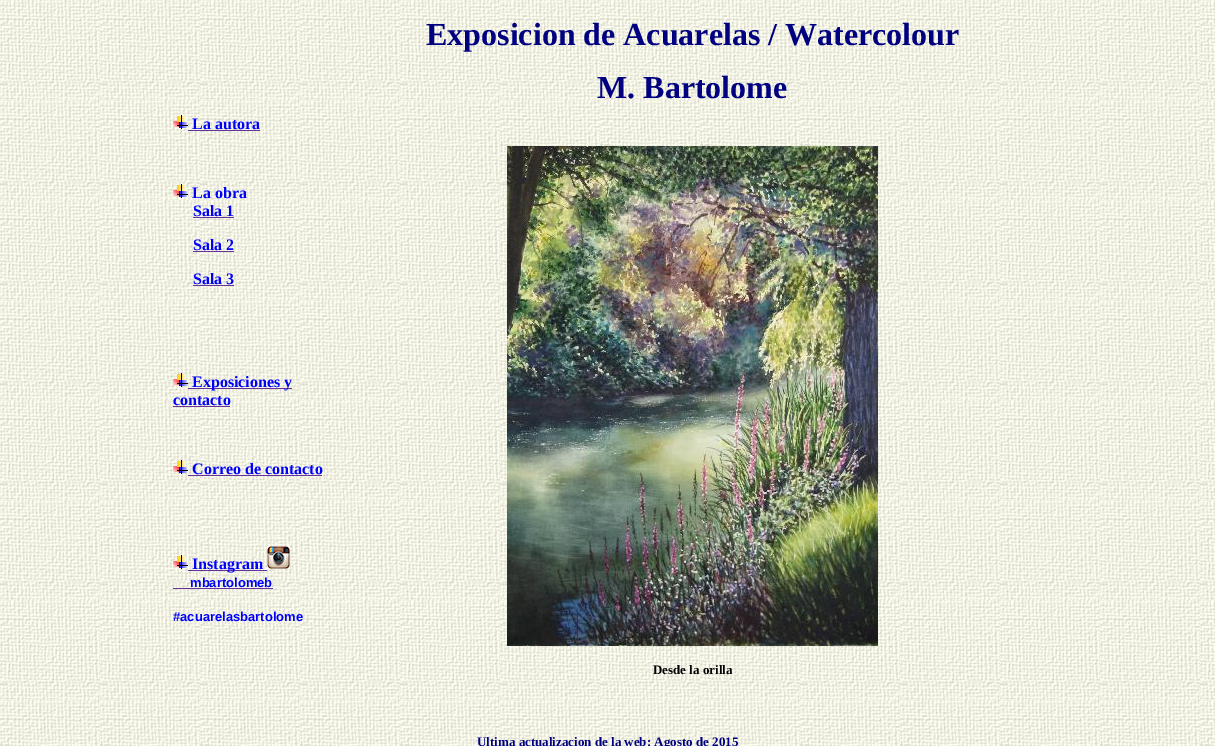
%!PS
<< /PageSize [1215 746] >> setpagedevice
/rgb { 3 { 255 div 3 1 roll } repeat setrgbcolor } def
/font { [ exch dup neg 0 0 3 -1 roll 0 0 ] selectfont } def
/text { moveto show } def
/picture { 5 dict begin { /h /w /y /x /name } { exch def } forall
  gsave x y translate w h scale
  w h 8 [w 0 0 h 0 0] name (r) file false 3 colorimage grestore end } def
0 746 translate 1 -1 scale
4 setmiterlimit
255 255 255 rgb
0 0 1215 746 rectfill
(img_01.rgb) 0 0 1215 746 picture
(img_02.rgb) 173 115 15 14 picture
102 51 153 rgb
188 130 72 1 rectfill
(img_03.rgb) 173 184 15 14 picture
193 217 41 1 rectfill
193 251 41 1 rectfill
193 285 41 1 rectfill
(img_04.rgb) 173 373 15 14 picture
188 388 104 1 rectfill
173 406 57 1 rectfill
(img_05.rgb) 173 460 15 14 picture
188 475 134 1 rectfill
(img_06.rgb) 173 555 15 14 picture
188 570 79 1 rectfill
(img_07.rgb) 267 546 23 23 picture
173 588 100 1 rectfill
(img_08.rgb) 507 146 371 500 picture
/LiberationSerif-Bold 32 font
0 0 128 rgb
(Exposicion de Acuarelas / Watercolour) 426 45 text
(M. Bartolome) 597 98 text
/LiberationSerif-Bold 16 font
0 0 255 rgb
(La autora) 192 129 text
(La obra) 192 198 text
(Sala 1) 193 216 text
(Sala 2) 193 250 text
(Sala 3) 193 284 text
(Exposiciones y) 192 387 text
(contacto) 173 405 text
(Correo de contacto) 192 474 text
(Instagram) 192 569 text
/LiberationSans-Bold 13 font
(mbartolomeb) 190 587 text
(#acuarelasbartolome) 173 621 text
/LiberationSerif-Bold 13 font
0 0 0 rgb
(Desde la orilla) 653 674 text
0 0 128 rgb
(Ultima actualizacion de la web: Agosto de 2015) 477 746 text
showpage
